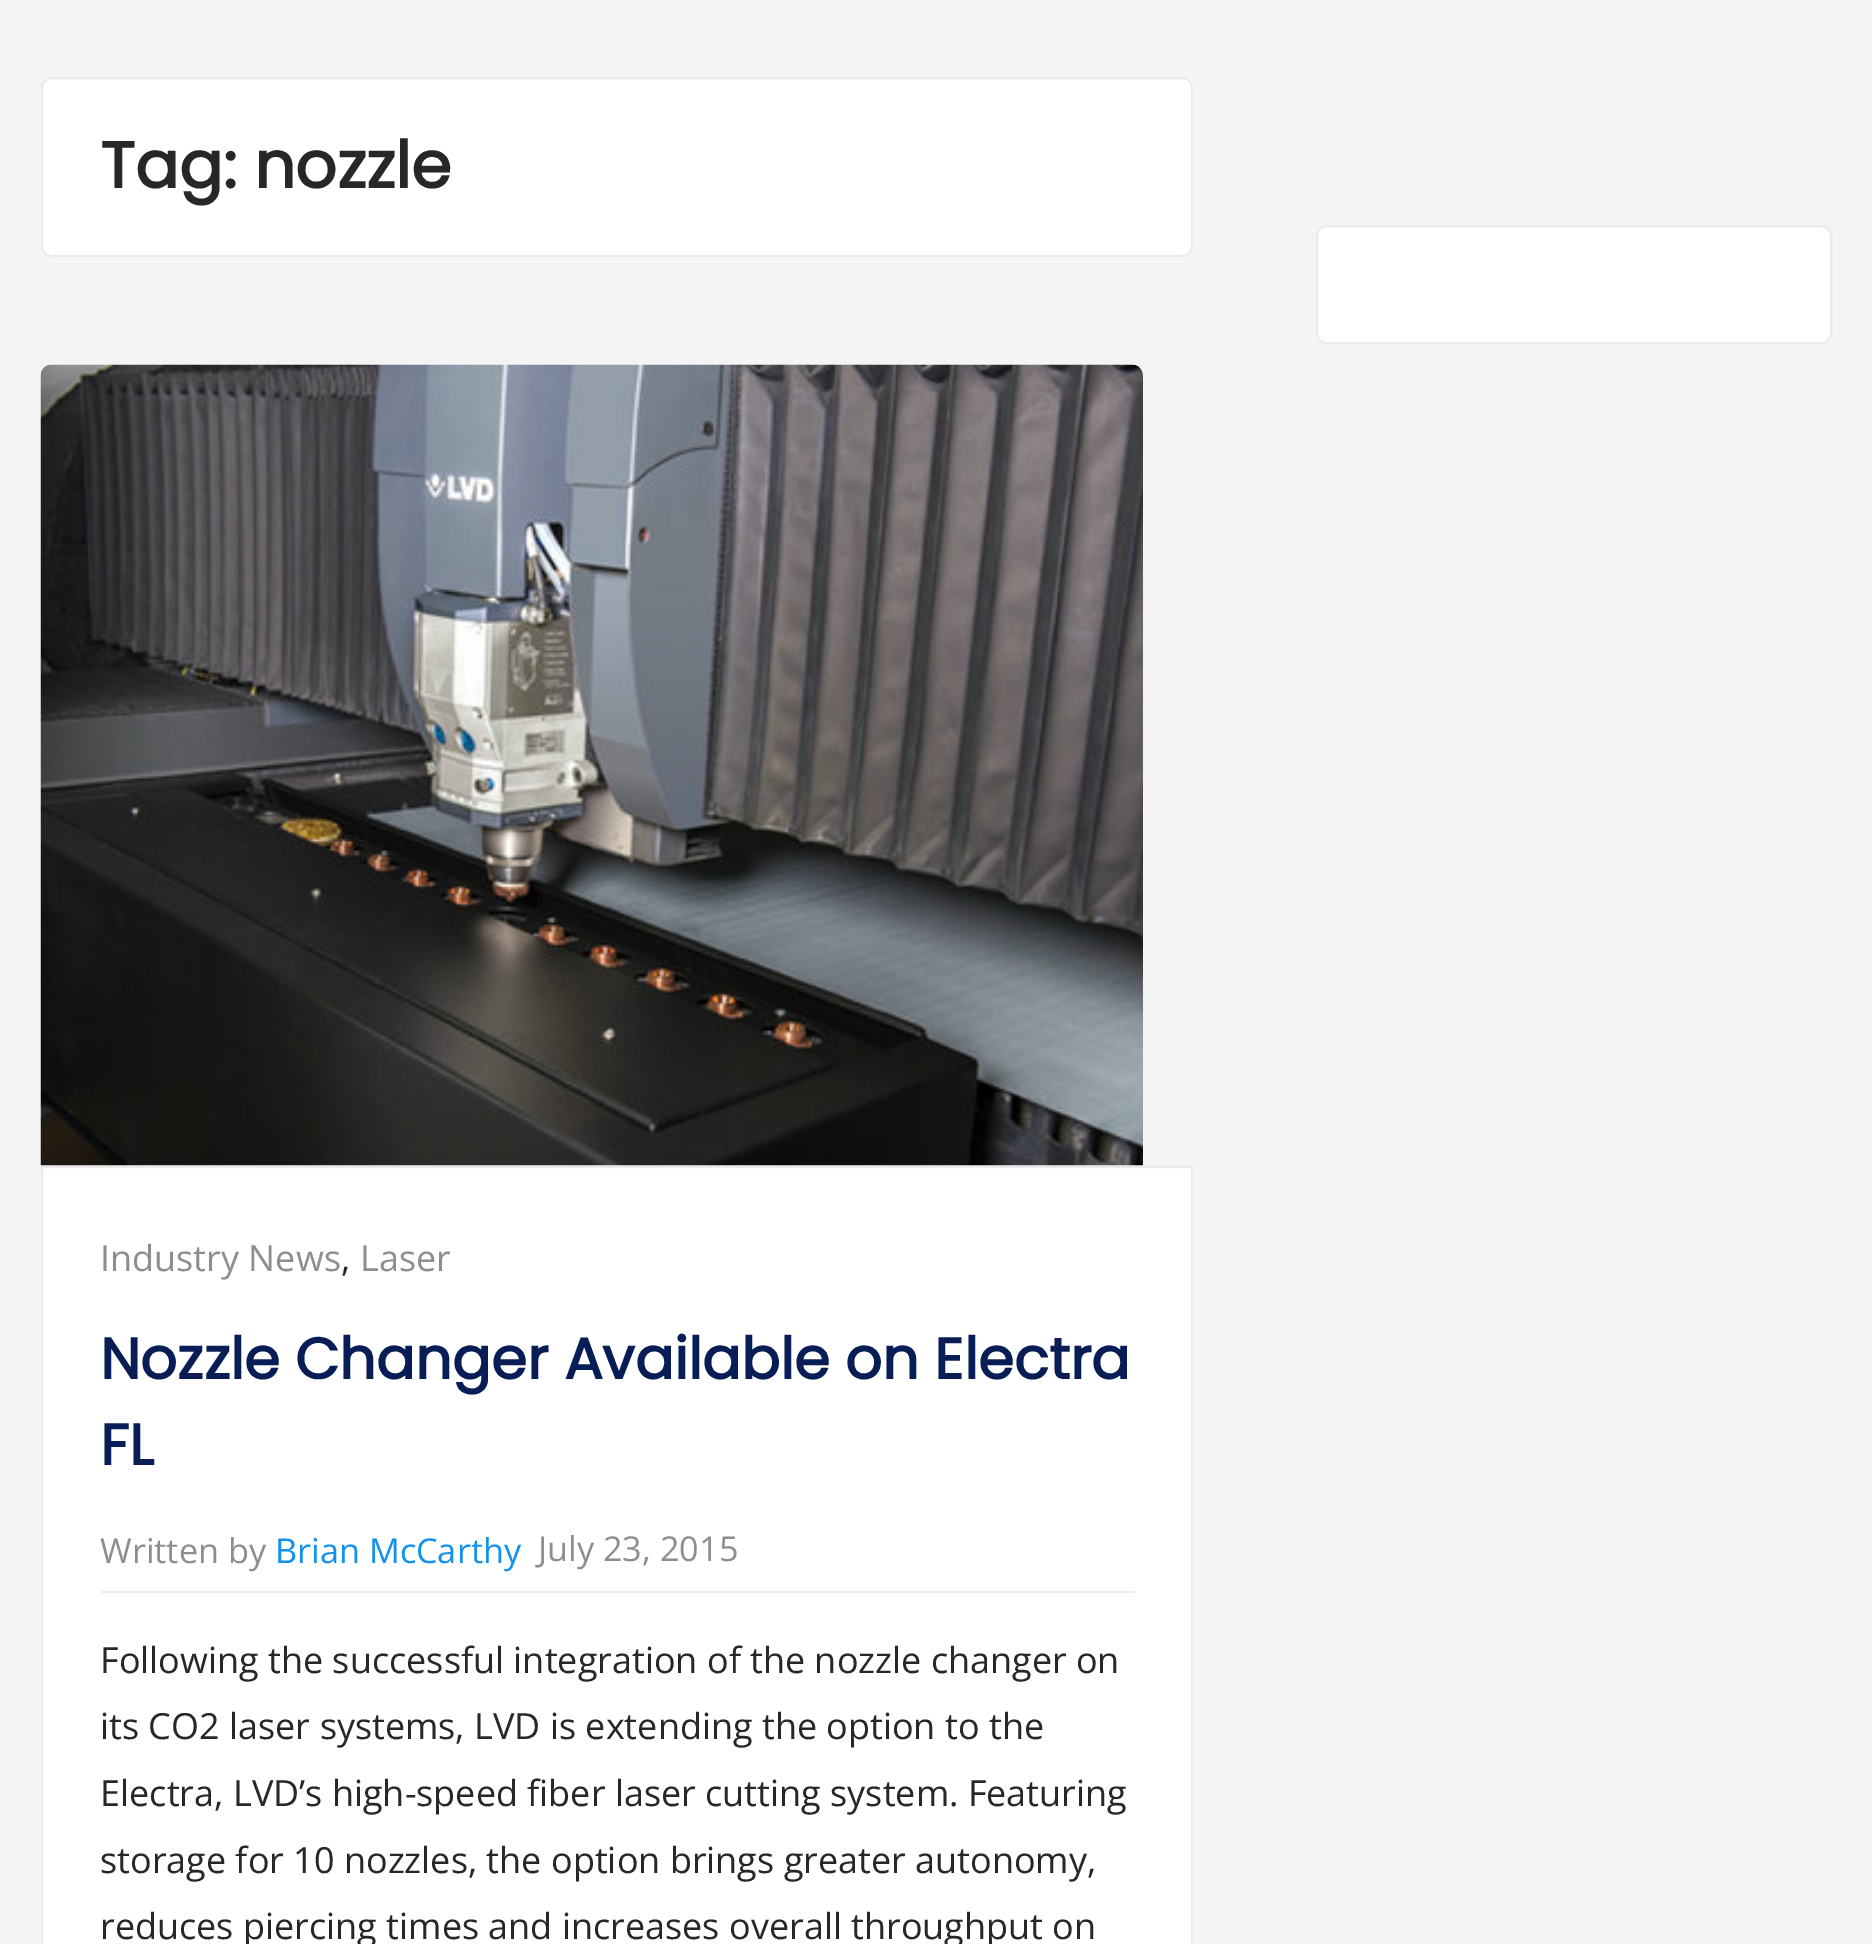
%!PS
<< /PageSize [1872 1944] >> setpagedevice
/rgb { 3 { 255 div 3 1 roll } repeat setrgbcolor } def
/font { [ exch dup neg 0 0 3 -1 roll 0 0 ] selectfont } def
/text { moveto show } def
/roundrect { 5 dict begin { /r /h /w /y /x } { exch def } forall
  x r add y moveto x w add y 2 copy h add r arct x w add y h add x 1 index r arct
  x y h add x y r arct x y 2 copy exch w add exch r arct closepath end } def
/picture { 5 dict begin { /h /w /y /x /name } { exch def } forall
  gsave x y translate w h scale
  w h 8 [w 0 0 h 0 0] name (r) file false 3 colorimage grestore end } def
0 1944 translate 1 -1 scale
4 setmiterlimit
244 244 244 rgb
0 0 1872 1944 rectfill
255 255 255 rgb
42 78 1150 178 10 roundrect gsave fill grestore
235 235 235 rgb
2 setlinewidth
stroke
(img_01.rgb) 40 364 1103 802 picture
255 255 255 rgb
42 1167 moveto 1150 0 rlineto 0 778 rlineto -1150 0 rlineto closepath gsave fill grestore
235 235 235 rgb
stroke
101 1591 1033 2 rectfill
255 255 255 rgb
1317 226 514 117 10 roundrect gsave fill grestore
235 235 235 rgb
stroke
/Poppins-Bold 64.75 font
39 39 39 rgb
(Tag: nozzle) 100 188 text
/OpenSans-Regular 36 font
139 142 147 rgb
(Industry News) 100 1271 text
39 39 39 rgb
(,) 341 1271 text
139 142 147 rgb
(Laser) 360 1271 text
/Poppins-Bold 57.6 font
8 29 86 rgb
(Nozzle Changer Available on Electra) 100 1379 text
(FL) 100 1465 text
/OpenSans-Regular 34.25 font
139 142 147 rgb
(Written by) 100 1563 text
18 145 238 rgb
(Brian McCarthy) 275 1563 text
139 142 147 rgb
(July 23, 2015) 538 1561 text
/OpenSans-Regular 36 font
39 39 39 rgb
(Following the successful integration of the nozzle changer on) 100 1673 text
(its CO2 laser systems, LVD is extending the option to the) 100 1739 text
(Electra, LVD’s high-speed fiber laser cutting system. Featuring) 100 1806 text
(storage for 10 nozzles, the option brings greater autonomy,) 100 1873 text
(reduces piercing times and increases overall throughput on) 100 1939 text
showpage
